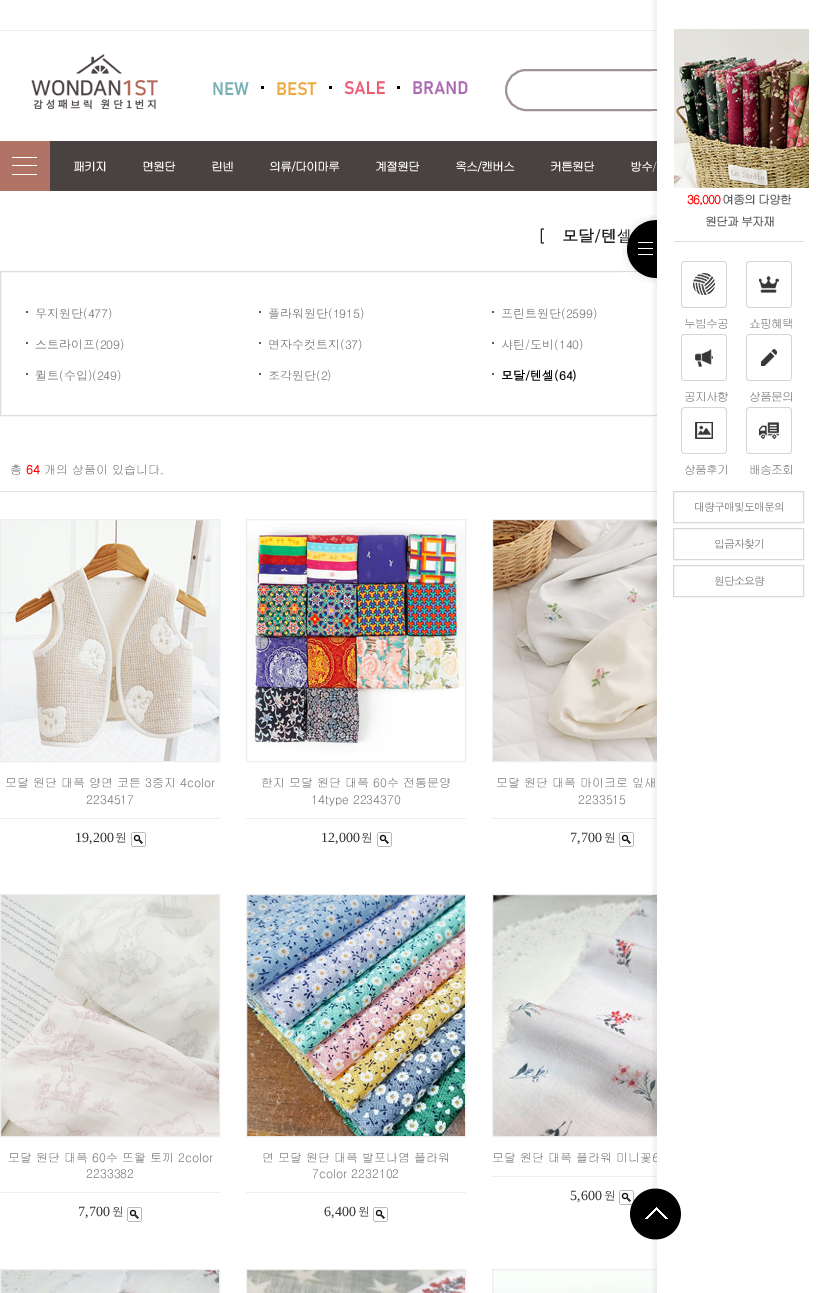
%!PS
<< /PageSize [821 1293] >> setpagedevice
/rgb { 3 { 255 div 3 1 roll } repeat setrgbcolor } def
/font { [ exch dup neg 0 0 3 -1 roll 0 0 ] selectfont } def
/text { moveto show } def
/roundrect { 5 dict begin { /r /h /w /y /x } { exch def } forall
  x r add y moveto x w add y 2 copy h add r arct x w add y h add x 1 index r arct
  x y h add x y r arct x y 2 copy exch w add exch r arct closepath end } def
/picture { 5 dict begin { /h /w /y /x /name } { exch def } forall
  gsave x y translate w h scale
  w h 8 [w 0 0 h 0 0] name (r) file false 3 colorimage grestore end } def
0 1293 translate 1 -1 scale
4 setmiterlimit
255 255 255 rgb
0 0 821 1293 rectfill
238 238 238 rgb
0 30 657 1 rectfill
(img_01.rgb) 31 54 127 55 picture
(img_02.rgb) 213 82 36 14 picture
0 0 0 rgb
261 86 3 3 rectfill
(img_03.rgb) 277 81 40 15 picture
329 86 3 3 rectfill
(img_04.rgb) 344 80 41 15 picture
397 86 3 3 rectfill
(img_05.rgb) 413 81 55 14 picture
161 148 148 rgb
2 setlinewidth
506 70 302 40 20 roundrect stroke
74 66 65 rgb
50 141 607 50 rectfill
177 115 102 rgb
0 141 50 50 rectfill
(img_06.rgb) 12 157 25 18 picture
221 221 221 rgb
1 setlinewidth
0.5 271.5 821 144 rectstroke
92 92 92 rgb
26 311 2 2 rectfill
259 311 2 2 rectfill
492 311 2 2 rectfill
26 342 2 2 rectfill
259 342 2 2 rectfill
492 342 2 2 rectfill
26 373 2 2 rectfill
259 373 2 2 rectfill
492 373 2 2 rectfill
229 229 229 rgb
0 491 657 1 rectfill
(img_07.rgb) 1 520 218 241 picture
238 238 238 rgb
0.5 519.5 219 242 rectstroke
0 818 220 1 rectfill
(img_08.rgb) 131 832 15 15 picture
(img_09.rgb) 247 523 218 230 picture
246.5 519.5 219 242 rectstroke
246 818 220 1 rectfill
(img_08.rgb) 377 832 15 15 picture
(img_10.rgb) 493 520 164 241 picture
492.5 519.5 219 242 rectstroke
492 818 165 1 rectfill
(img_08.rgb) 619 832 15 15 picture
(img_11.rgb) 1 895 218 241 picture
0.5 894.5 219 242 rectstroke
0 1192 220 1 rectfill
(img_08.rgb) 127 1207 15 15 picture
(img_12.rgb) 247 895 218 241 picture
246.5 894.5 219 242 rectstroke
246 1192 220 1 rectfill
(img_08.rgb) 373 1207 15 15 picture
(img_13.rgb) 493 895 164 241 picture
492.5 894.5 219 242 rectstroke
492 1176 165 1 rectfill
(img_08.rgb) 619 1190 15 15 picture
(img_14.rgb) 1 1270 218 23 picture
0.5 1269.5 219 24 rectstroke
(img_15.rgb) 247 1270 218 23 picture
246.5 1269.5 219 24 rectstroke
(img_16.rgb) 493 1270 164 23 picture
492.5 1269.5 219 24 rectstroke
/Gulim-Bold 12 font
255 255 255 rgb
73 171 moveto -1 0 (패키지) ashow
142 171 moveto -1 0 (면원단) ashow
211 171 moveto -1 0 (린넨) ashow
269 171 moveto -1 0 (의류/다이마루) ashow
375 171 moveto -1 0 (계절원단) ashow
455 171 moveto -1 0 (옥스/캔버스) ashow
550 171 moveto -1 0 (커튼원단) ashow
630 171 moveto -1 0 (방수/) ashow
/Dotum-Bold 16 font
34 34 34 rgb
([   모달/텐셀) 538 242 text
/Dotum-Regular 12 font
120 120 120 rgb
(무지원단\(477\)) 35 318 text
(플라워원단\(1915\)) 268 318 text
(프린트원단\(2599\)) 501 318 text
(스트라이프\(209\)) 35 349 text
(면자수컷트지\(37\)) 268 349 text
(샤틴/도비\(140\)) 501 349 text
(퀼트\(수입\)\(249\)) 35 380 text
(조각원단\(2\)) 268 380 text
/Dotum-Bold 12 font
0 0 0 rgb
(모달/텐셀\(64\)) 501 380 text
/Gulim-Regular 12 font
120 120 120 rgb
(총) 10 474 text
/Gulim-Bold 12 font
255 0 0 rgb
(64) 26 474 text
/Gulim-Regular 12 font
120 120 120 rgb
(개의 상품이 있습니다.) 44 474 text
(모달 원단 대폭 양면 코튼 3중지 4color) 5 787 text
(2234517) 86 804 text
/LiberationSerif-Regular 14 font
51 51 51 rgb
(19,200) 75 842 text
/Dotum-Regular 12 font
(원) 115 842 text
/Gulim-Regular 12 font
120 120 120 rgb
(한지 모달 원단 대폭 60수 전통문양) 261 787 text
(14type 2234370) 311 804 text
/LiberationSerif-Regular 14 font
51 51 51 rgb
(12,000) 321 842 text
/Dotum-Regular 12 font
(원) 361 842 text
/Gulim-Regular 12 font
120 120 120 rgb
(모달 원단 대폭 마이크로 잎새) 496 787 text
(2233515) 578 804 text
/LiberationSerif-Regular 14 font
51 51 51 rgb
(7,700) 570 842 text
/Dotum-Regular 12 font
(원) 604 842 text
/Gulim-Regular 12 font
120 120 120 rgb
(모달 원단 대폭 60수 뜨왈 토끼 2color) 8 1162 text
(2233382) 86 1178 text
/LiberationSerif-Regular 14 font
51 51 51 rgb
(7,700) 78 1216 text
/Dotum-Regular 12 font
(원) 112 1216 text
/Gulim-Regular 12 font
120 120 120 rgb
(면 모달 원단 대폭 발포나염 플라워) 262 1162 text
(7color 2232102) 312 1178 text
/LiberationSerif-Regular 14 font
51 51 51 rgb
(6,400) 324 1216 text
/Dotum-Regular 12 font
(원) 358 1216 text
/Gulim-Regular 12 font
120 120 120 rgb
(모달 원단 대폭 플라워 미니꽃6) 492 1162 text
/LiberationSerif-Regular 14 font
51 51 51 rgb
(5,600) 570 1200 text
/Dotum-Regular 12 font
(원) 604 1200 text
(img_17.rgb) 652 0 169 1293 picture
(img_18.rgb) 622 215 35 68 picture
(img_19.rgb) 674 29 135 159 picture
221 221 221 rgb
674 241 130 1 rectfill
/Gulim-Bold 12 font
255 0 0 rgb
687 204 moveto -1 0 (36,000) ashow
94 94 94 rgb
722 204 moveto -1 0 (여종의 다양한) ashow
705 226 moveto -1 0 (원단과 부자재) ashow
(img_20.rgb) 681 261 46 47 picture
/Gulim-Regular 12 font
120 120 120 rgb
684 328 moveto -1 0 (누빔수공) ashow
(img_21.rgb) 746 261 46 47 picture
749 328 moveto -1 0 (쇼핑혜택) ashow
(img_22.rgb) 681 334 46 47 picture
684 401 moveto -1 0 (공지사항) ashow
(img_23.rgb) 746 334 46 47 picture
749 401 moveto -1 0 (상품문의) ashow
(img_24.rgb) 681 407 46 47 picture
684 474 moveto -1 0 (상품후기) ashow
(img_25.rgb) 746 407 46 47 picture
749 474 moveto -1 0 (배송조회) ashow
217 217 217 rgb
673.5 491.5 130 31 rectstroke
/Dotum-Regular 11 font
120 120 120 rgb
694 511 moveto -1 0 (대량구매및도매문의) ashow
217 217 217 rgb
673.5 528.5 130 31 rectstroke
120 120 120 rgb
714 548 moveto -1 0 (입금자찾기) ashow
217 217 217 rgb
673.5 565.5 130 31 rectstroke
120 120 120 rgb
714 585 moveto -1 0 (원단소요량) ashow
(img_26.rgb) 630 1188 51 52 picture
showpage
